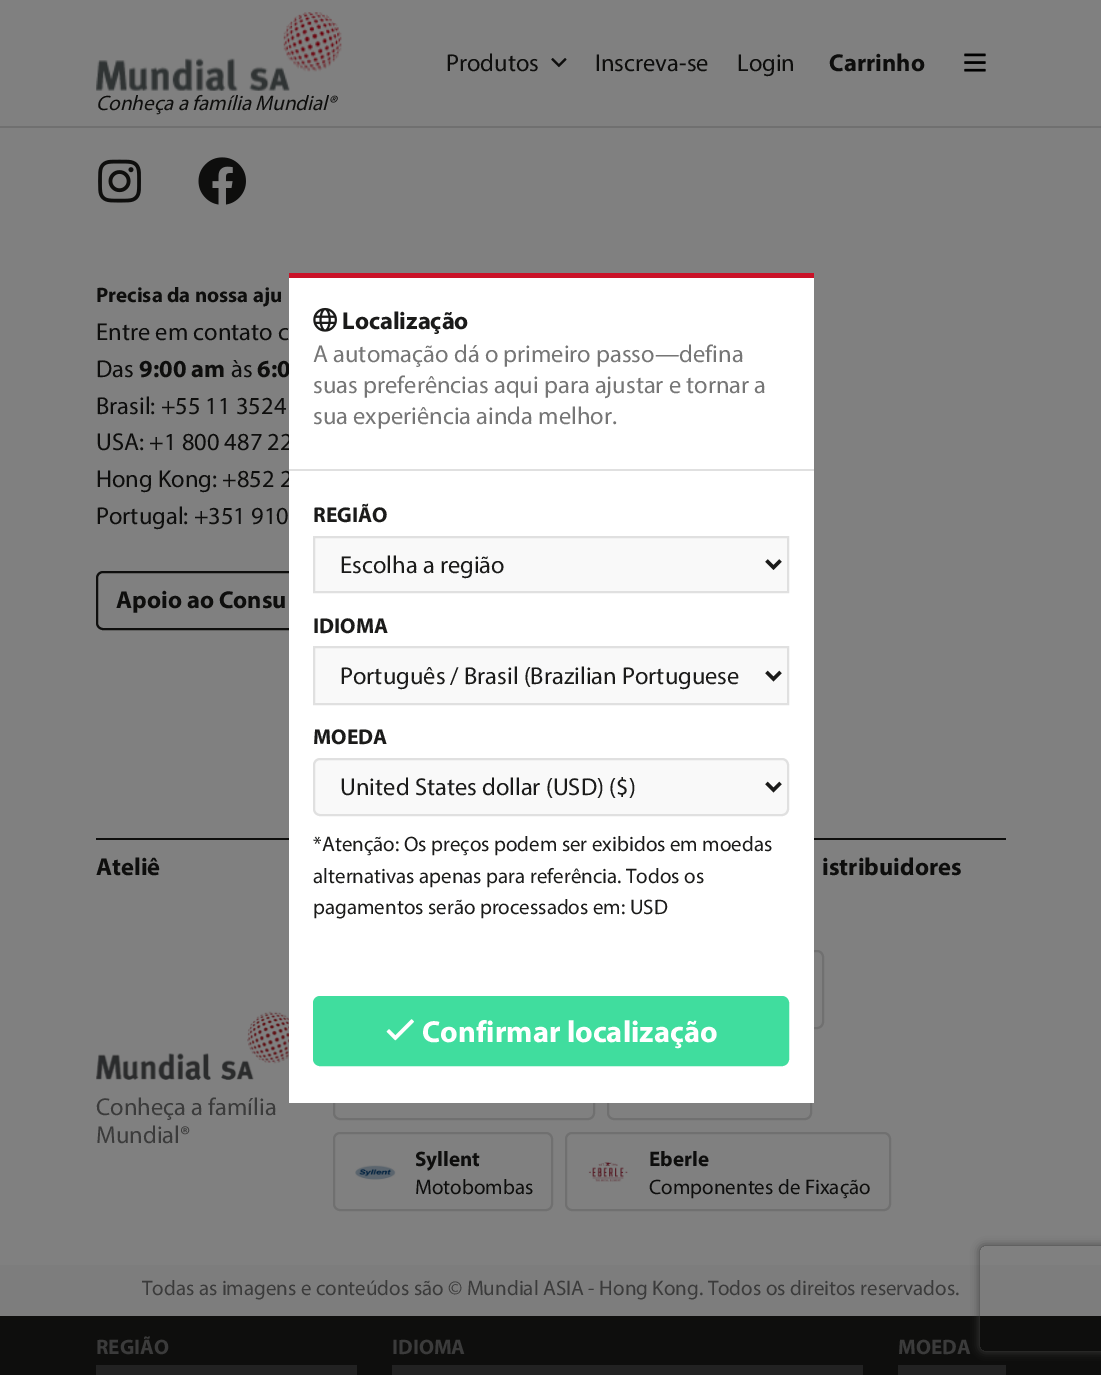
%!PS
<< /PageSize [1101 1375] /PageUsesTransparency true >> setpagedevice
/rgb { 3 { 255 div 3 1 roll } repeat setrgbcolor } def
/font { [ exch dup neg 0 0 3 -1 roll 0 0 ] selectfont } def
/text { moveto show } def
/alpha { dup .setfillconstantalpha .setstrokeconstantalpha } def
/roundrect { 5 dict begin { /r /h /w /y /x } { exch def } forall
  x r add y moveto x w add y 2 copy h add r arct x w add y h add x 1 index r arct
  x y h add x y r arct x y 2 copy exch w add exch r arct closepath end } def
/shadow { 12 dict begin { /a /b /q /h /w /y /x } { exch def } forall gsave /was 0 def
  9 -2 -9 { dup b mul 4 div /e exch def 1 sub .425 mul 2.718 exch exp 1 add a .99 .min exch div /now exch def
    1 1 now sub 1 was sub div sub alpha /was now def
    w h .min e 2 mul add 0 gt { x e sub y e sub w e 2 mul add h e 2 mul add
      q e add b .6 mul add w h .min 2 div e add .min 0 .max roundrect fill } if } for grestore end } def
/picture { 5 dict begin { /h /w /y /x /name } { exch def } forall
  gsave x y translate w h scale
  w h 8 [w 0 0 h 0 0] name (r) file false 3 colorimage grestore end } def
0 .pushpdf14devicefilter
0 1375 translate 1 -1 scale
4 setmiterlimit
128 128 128 rgb
0 0 1101 1375 rectfill
112 112 112 rgb
0 126 1101 2 rectfill
(img_01.rgb) 551 58 16 10 picture
(img_02.rgb) 964 53 22 19 picture
(img_03.rgb) 96 12 246 79 picture
(img_04.rgb) 98 159 43 44 picture
(img_05.rgb) 198 157 48 48 picture
14 14 13 rgb
2 setlinewidth
97 572 305 57 6 roundrect stroke
96 838 193 2 rectfill
814 838 192 2 rectfill
(img_06.rgb) 96 1011 193 69 picture
112 112 112 rgb
635 951 188 77 6 roundrect stroke
334 1042 260 77 6 roundrect stroke
608 1042 203 77 6 roundrect stroke
334 1133 218 77 6 roundrect stroke
(img_07.rgb) 355 1165 41 15 picture
566 1133 324 77 6 roundrect stroke
(img_08.rgb) 588 1162 40 20 picture
125 125 125 rgb
0 1265 1101 51 rectfill
14 14 13 rgb
0 1316 1101 59 rectfill
34 34 34 rgb
96 1365 261 10 rectfill
392 1365 471 10 rectfill
898 1365 108 10 rectfill
202 18 40 rgb
289 273 525 5 rectfill
gsave
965 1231 moveto 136 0 rlineto 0 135 rlineto -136 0 rlineto closepath 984 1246 moveto 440 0 rlineto 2 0 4 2 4 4 rcurveto 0 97 rlineto 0 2 -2 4 -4 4 rcurveto -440 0 rlineto -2 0 -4 -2 -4 -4 rcurveto 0 -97 rlineto 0 -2 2 -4 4 -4 rcurveto closepath eoclip newpath
64 64 64 rgb
980 1246 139 105 4 4.5 1 shadow
grestore
/Myriad-Regular 24.5 font
14 14 13 rgb
(Produtos) 446 71 text
(Inscreva-se) 595 71 text
(Login) 737 71 text
/Myriad-Bold 24.5 font
(Carrinho) 829 71 text
/Myriad-Italic 21 font
(Conheça a família Mundial®) 96 110 text
/Myriad-Bold 21 font
(Precisa da nossa aju) 96 302 text
/Myriad-Regular 24.5 font
(Entre em contato c) 96 340 text
(Das) 96 377 text
/Myriad-Bold 24.5 font
(9:00 am) 139 377 text
/Myriad-Regular 24.5 font
(às) 231 377 text
/Myriad-Bold 24.5 font
(6:0) 257 377 text
/Myriad-Regular 24.5 font
(Brasil: +55 11 3524) 96 414 text
(USA: +1 800 487 22) 96 450 text
(Hong Kong: +852 2) 96 487 text
(Portugal: +351 910) 96 524 text
/Myriad-Bold 24.5 font
(Apoio ao Consu) 116 608 text
(Ateliê) 96 875 text
(istribuidores) 822 875 text
/Myriad-Regular 24.5 font
59 59 59 rgb
(Conheça a família) 96 1115 text
(Mundial®) 96 1143 text
/Myriad-Bold 21 font
14 14 13 rgb
(Syllent) 415 1166 text
/Myriad-Regular 21 font
(Motobombas) 415 1194 text
/Myriad-Bold 21 font
(Eberle) 649 1166 text
/Myriad-Regular 21 font
(Componentes de Fixação) 649 1194 text
59 59 59 rgb
(Todas as imagens e conteúdos são © Mundial ASIA - Hong Kong. Todos os direitos reservados.) 142 1295 text
/Myriad-Bold 21 font
(REGIÃO) 96 1354 text
(IDIOMA) 392 1354 text
(MOEDA) 898 1354 text
255 255 255 rgb
289 278 525 825 rectfill
224 224 224 rgb
289 469 525 2 rectfill
(img_09.rgb) 313 307 24 25 picture
/Myriad-Bold 24.5 font
27 27 26 rgb
(Localização) 342 329 text
/Myriad-Regular 24.5 font
118 118 118 rgb
(A automação dá o primeiro passo—defina) 313 362 text
(suas preferências aqui para ajustar e tornar a) 313 393 text
(sua experiência ainda melhor.) 313 424 text
/Myriad-Bold 21.5 font
27 27 26 rgb
(REGIÃO) 313 522 text
249 249 249 rgb
314 537 moveto 474 0 rlineto 0 55 rlineto -474 0 rlineto closepath gsave fill grestore
224 224 224 rgb
stroke
27 27 26 rgb
3.5 setlinewidth
766.5 560.5 moveto 7 7 rlineto 7 -7 rlineto stroke
/Myriad-Regular 24.5 font
(Escolha a região) 340 573 text
/Myriad-Bold 21.5 font
(IDIOMA) 313 633 text
249 249 249 rgb
314 647 moveto 474 0 rlineto 0 57 rlineto -474 0 rlineto closepath gsave fill grestore
224 224 224 rgb
2 setlinewidth
stroke
27 27 26 rgb
3.5 setlinewidth
766.5 672 moveto 7 7 rlineto 7 -7 rlineto stroke
/Myriad-Regular 24.5 font
(Português / Brasil \(Brazilian Portuguese) 340 684 text
/Myriad-Bold 21.5 font
(MOEDA) 313 744 text
249 249 249 rgb
314 759 474 56 6 roundrect gsave fill grestore
224 224 224 rgb
2 setlinewidth
stroke
27 27 26 rgb
3.5 setlinewidth
766.5 783 moveto 7 7 rlineto 7 -7 rlineto stroke
/Myriad-Regular 24.5 font
(United States dollar \(USD\) \($\)) 340 795 text
/Myriad-Regular 21 font
(*Atenção: Os preços podem ser exibidos em moedas) 313 851 text
(alternativas apenas para referência. Todos os) 313 883 text
(pagamentos serão processados em: USD) 313 914 text
64 221 158 rgb
314 997 474 68 6 roundrect gsave fill grestore
2 setlinewidth
stroke
(img_10.rgb) 386 1019 28 22 picture
/Myriad-Bold 30.6 font
255 255 255 rgb
(Confirmar localização) 422 1042 text
.poppdf14devicefilter showpage
